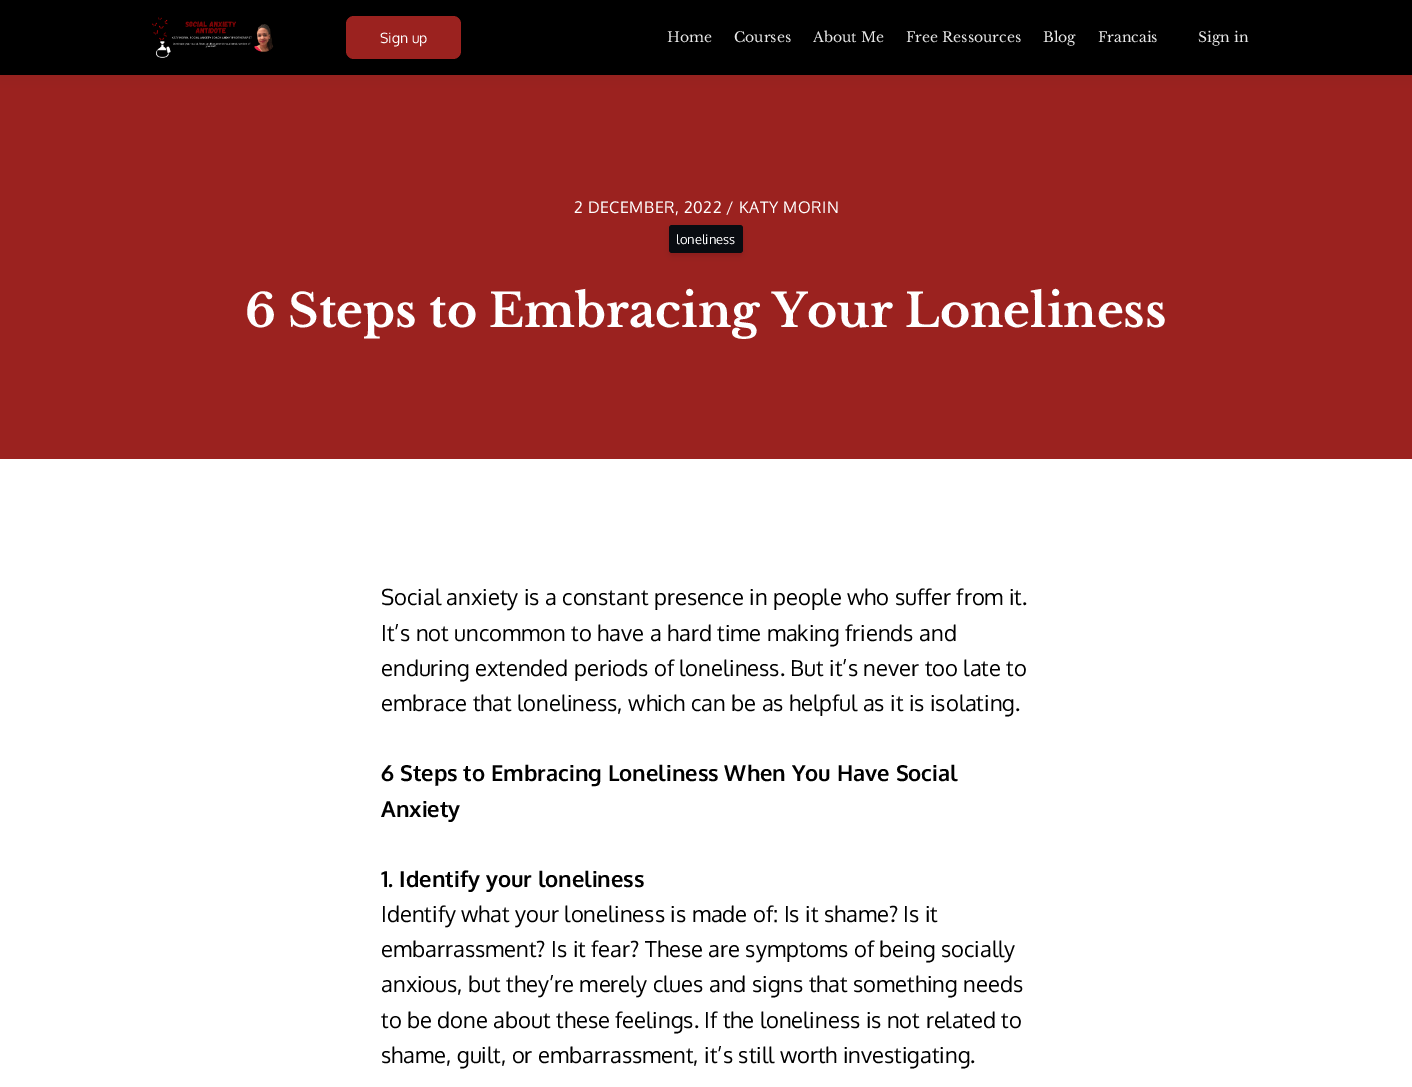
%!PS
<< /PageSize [1412 1087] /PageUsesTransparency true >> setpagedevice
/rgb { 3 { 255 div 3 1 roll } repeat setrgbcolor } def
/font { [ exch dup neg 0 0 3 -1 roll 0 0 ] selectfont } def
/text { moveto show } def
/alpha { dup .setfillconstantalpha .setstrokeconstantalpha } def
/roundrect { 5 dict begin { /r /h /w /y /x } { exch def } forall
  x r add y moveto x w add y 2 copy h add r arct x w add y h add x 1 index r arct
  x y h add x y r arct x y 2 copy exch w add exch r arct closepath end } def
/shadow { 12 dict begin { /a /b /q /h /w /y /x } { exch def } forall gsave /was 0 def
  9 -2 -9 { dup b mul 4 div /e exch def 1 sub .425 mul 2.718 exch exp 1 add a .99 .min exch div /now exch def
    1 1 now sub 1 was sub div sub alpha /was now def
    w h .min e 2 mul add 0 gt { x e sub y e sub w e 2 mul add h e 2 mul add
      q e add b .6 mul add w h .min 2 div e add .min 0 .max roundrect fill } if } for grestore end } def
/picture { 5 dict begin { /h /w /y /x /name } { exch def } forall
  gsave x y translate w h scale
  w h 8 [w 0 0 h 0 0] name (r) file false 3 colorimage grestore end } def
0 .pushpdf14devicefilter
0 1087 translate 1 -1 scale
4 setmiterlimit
255 255 255 rgb
0 0 1412 1087 rectfill
155 34 31 rgb
0 75 1412 384 rectfill
0 0 0 rgb
0 0 1412 75 0 7.5 0.05 shadow
0 0 1412 75 rectfill
(img_01.rgb) 152 17 122 41 picture
155 34 31 rgb
346 16 115 43 8 roundrect fill
0 0 0 rgb
669 228 74 28 3 2.5 0.1 shadow
9 12 17 rgb
669 225 74 28 3 roundrect fill
/Oxygen-Regular 14 font
255 255 255 rgb
(Sign up) 380 43 text
/LibreBaskerville-Regular 14 font
231 231 231 rgb
(Home) 667 42 text
(Courses) 734 42 text
(About Me) 813 42 text
(Free Ressources) 906 42 text
(Blog) 1043 42 text
(Francais) 1098 42 text
(Sign in) 1198 42 text
/Oxygen-Regular 16 font
255 255 255 rgb
574 213 moveto 0.5 0 (2 DECEMBER, 2022 / KATY MORIN) ashow
/Oxygen-Regular 13 font
(loneliness) 676 244 text
/LibreBaskerville-Bold 46 font
(6 Steps to Embracing Your Loneliness) 245 327 text
/Oxygen-Regular 22 font
0 0 0 rgb
(Social anxiety is a constant presence in people who suffer from it.) 381 605 text
(It’s not uncommon to have a hard time making friends and) 381 641 text
(enduring extended periods of loneliness. But it’s never too late to) 381 676 text
(embrace that loneliness, which can be as helpful as it is isolating.) 381 711 text
/Oxygen-Bold 22 font
(6 Steps to Embracing Loneliness When You Have Social) 381 781 text
(Anxiety) 381 817 text
(1. Identify your loneliness) 381 887 text
/Oxygen-Regular 22 font
(Identify what your loneliness is made of: Is it shame? Is it) 381 922 text
(embarrassment? Is it fear? These are symptoms of being socially) 381 957 text
(anxious, but they’re merely clues and signs that something needs) 381 992 text
(to be done about these feelings. If the loneliness is not related to) 381 1028 text
(shame, guilt, or embarrassment, it’s still worth investigating.) 381 1063 text
.poppdf14devicefilter showpage
